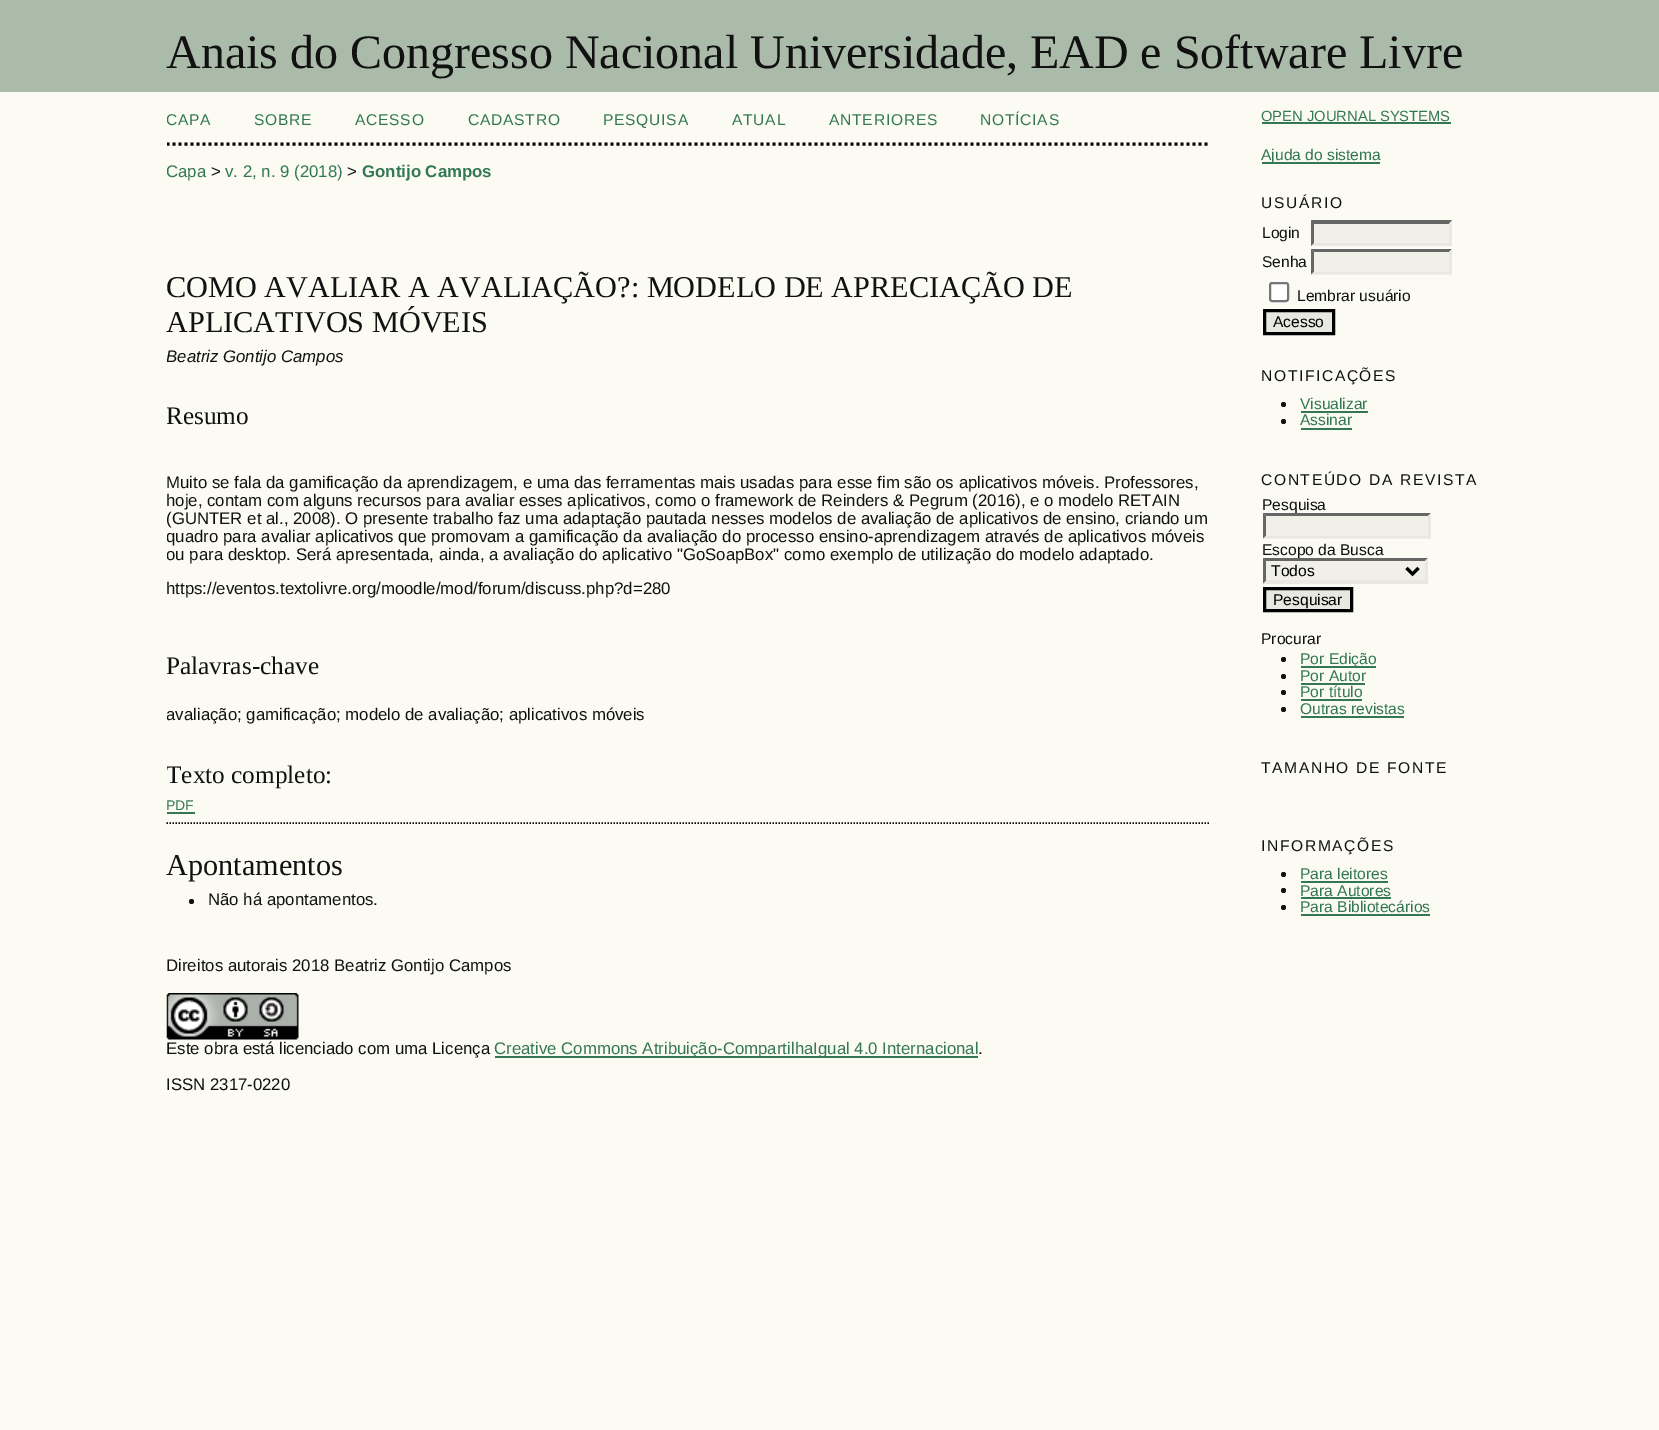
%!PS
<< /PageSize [1659 1430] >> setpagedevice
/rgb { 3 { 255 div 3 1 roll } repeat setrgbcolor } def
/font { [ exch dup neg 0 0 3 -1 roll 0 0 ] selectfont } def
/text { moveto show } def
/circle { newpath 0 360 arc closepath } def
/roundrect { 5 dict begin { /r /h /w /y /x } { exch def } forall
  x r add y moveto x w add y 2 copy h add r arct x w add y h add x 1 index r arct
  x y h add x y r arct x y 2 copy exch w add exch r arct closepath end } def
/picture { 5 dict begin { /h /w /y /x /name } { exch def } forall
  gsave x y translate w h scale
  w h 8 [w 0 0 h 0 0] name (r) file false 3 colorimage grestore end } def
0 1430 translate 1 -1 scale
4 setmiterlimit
251 251 243 rgb
0 0 1659 1430 rectfill
170 187 170 rgb
0 0 1659 92 rectfill
gsave
167 92 1044 1050 rectclip
0 0 0 rgb
3 setlinewidth
[3 3] 0 setdash
166.5 144 moveto 1044 0 rlineto stroke
grestore
51 119 85 rgb
167 812 28 2 rectfill
0 0 0 rgb
1.5 setlinewidth
[1.5 1.5] 0 setdash
166.5 823 moveto 1044 0 rlineto stroke
17 17 17 rgb
191.5 901.5 2.5 circle fill
(img_01.rgb) 166 993 133 47 picture
51 119 85 rgb
495 1056 483 2 rectfill
1262 122 189 2 rectfill
1262 162 118 2 rectfill
240 240 232 rgb
1311 221 141 25 rectfill
102 102 102 rgb
1311 220 moveto 141 0 rlineto -3 4 rlineto -135 0 rlineto closepath fill
232 232 225 rgb
1452 220.5 moveto 0 25.5 rlineto -3 -3 rlineto 0 -19.5 rlineto closepath fill
1452 246 moveto -141 0 rlineto 3 -3 rlineto 135 0 rlineto closepath fill
102 102 102 rgb
1311 246 moveto 0 -25.5 rlineto 3 3 rlineto 0 19.5 rlineto closepath fill
240 240 232 rgb
1311 249 141 26 rectfill
102 102 102 rgb
1311 249 moveto 141 0 rlineto -3 3 rlineto -135 0 rlineto closepath fill
232 232 225 rgb
1452 249 moveto 0 25.5 rlineto -3 -3 rlineto 0 -19.5 rlineto closepath fill
1452 274 moveto -141 0 rlineto 3 -2 rlineto 135 0 rlineto closepath fill
102 102 102 rgb
1311 274.5 moveto 0 -25.5 rlineto 3 3 rlineto 0 19.5 rlineto closepath fill
255 255 255 rgb
1270 283 18 18 2 roundrect gsave fill grestore
118 118 118 rgb
2 setlinewidth
[] 0 setdash
stroke
232 232 225 rgb
1264.5 310.5 moveto 69 0 rlineto 0 23 rlineto -69 0 rlineto closepath gsave fill grestore
0 0 0 rgb
3 setlinewidth
stroke
17 17 17 rgb
1283.5 404.5 2.5 circle fill
51 119 85 rgb
1301 411 67 2 rectfill
17 17 17 rgb
1283.5 421.5 2.5 circle fill
51 119 85 rgb
1301 428 51 2 rectfill
232 232 225 rgb
1264.5 588.5 moveto 87 0 rlineto 0 22 rlineto -87 0 rlineto closepath gsave fill grestore
0 0 0 rgb
stroke
17 17 17 rgb
1283.5 659.5 2.5 circle fill
51 119 85 rgb
1301 666 75 2 rectfill
17 17 17 rgb
1283.5 676.5 2.5 circle fill
51 119 85 rgb
1301 683 64 2 rectfill
17 17 17 rgb
1283.5 692.5 2.5 circle fill
51 119 85 rgb
1301 699 61 2 rectfill
17 17 17 rgb
1283.5 709.5 2.5 circle fill
51 119 85 rgb
1301 716 103 2 rectfill
17 17 17 rgb
1283.5 874.5 2.5 circle fill
51 119 85 rgb
1301 881 87 2 rectfill
17 17 17 rgb
1283.5 890.5 2.5 circle fill
51 119 85 rgb
1301 897 90 2 rectfill
17 17 17 rgb
1283.5 907.5 2.5 circle fill
51 119 85 rgb
1301 914 129 2 rectfill
/LiberationSerif-Regular 48 font
17 17 17 rgb
(Anais do Congresso Nacional Universidade, EAD e Software Livre) 166 68 text
gsave
167 92 1044 1050 rectclip
/LiberationSans-Regular 15.6 font
51 119 85 rgb
166 125 moveto 0.75 0 (CAPA) ashow
grestore
/LiberationSans-Regular 15.6 font
51 119 85 rgb
254 125 moveto 0.75 0 (SOBRE) ashow
355 125 moveto 0.75 0 (ACESSO) ashow
468 125 moveto 0.75 0 (CADASTRO) ashow
603 125 moveto 0.75 0 (PESQUISA) ashow
732 125 moveto 0.75 0 (ATUAL) ashow
829 125 moveto 0.75 0 (ANTERIORES) ashow
980 125 moveto 0.75 0 (NOTÍCIAS) ashow
gsave
167 92 1044 1050 rectclip
/LiberationSans-Regular 16.8 font
(Capa) 166 177 text
grestore
/LiberationSans-Regular 16.8 font
17 17 17 rgb
(>) 211 177 text
51 119 85 rgb
(v. 2, n. 9 \(2018\)) 225 177 text
17 17 17 rgb
(>) 347 177 text
/LiberationSans-Bold 16.8 font
51 119 85 rgb
(Gontijo Campos) 362 177 text
/LiberationSerif-Regular 30.25 font
17 17 17 rgb
(COMO AVALIAR A AVALIAÇÃO?: MODELO DE APRECIAÇÃO DE) 166 297 text
(APLICATIVOS MÓVEIS) 166 332 text
gsave
167 92 1044 1050 rectclip
/LiberationSans-Italic 16.8 font
(Beatriz Gontijo Campos) 166 362 text
/LiberationSerif-Regular 25.25 font
(Resumo) 166 424 text
grestore
/LiberationSans-Regular 16.8 font
(Muito se fala da gamificação da aprendizagem, e uma das ferramentas mais usadas para esse fim são os aplicativos móveis. Professores,) 166 488 text
(hoje, contam com alguns recursos para avaliar esses aplicativos, como o framework de Reinders & Pegrum \(2016\), e o modelo RETAIN) 166 506 text
(\(GUNTER et al., 2008\). O presente trabalho faz uma adaptação pautada nesses modelos de avaliação de aplicativos de ensino, criando um) 166 524 text
gsave
167 92 1044 1050 rectclip
(quadro para avaliar aplicativos que promovam a gamificação da avaliação do processo ensino-aprendizagem através de aplicativos móveis) 166 542 text
(ou para desktop. Será apresentada, ainda, a avaliação do aplicativo "GoSoapBox" como exemplo de utilização do modelo adaptado.) 166 560 text
grestore
(https://eventos.textolivre.org/moodle/mod/forum/discuss.php?d=280) 166 594 text
gsave
167 92 1044 1050 rectclip
/LiberationSerif-Regular 25.25 font
(Palavras-chave) 166 674 text
/LiberationSans-Regular 16.8 font
(avaliação; gamificação; modelo de avaliação; aplicativos móveis) 166 720 text
/LiberationSerif-Regular 25.25 font
(Texto completo:) 166 783 text
grestore
/LiberationSans-Regular 14 font
51 119 85 rgb
(PDF) 166 810 text
/LiberationSerif-Regular 30.25 font
17 17 17 rgb
(Apontamentos) 166 875 text
/LiberationSans-Regular 16.8 font
(Não há apontamentos.) 208 905 text
(Direitos autorais 2018 Beatriz Gontijo Campos) 166 971 text
(Este obra está licenciado com uma Licença) 166 1054 text
51 119 85 rgb
(Creative Commons Atribuição-CompartilhaIgual 4.0 Internacional) 494 1054 text
17 17 17 rgb
(.) 978 1054 text
(ISSN 2317-0220) 166 1090 text
/LiberationSans-Regular 14.75 font
51 119 85 rgb
(OPEN JOURNAL SYSTEMS) 1261 121 text
/LiberationSans-Regular 15.6 font
(Ajuda do sistema) 1261 160 text
17 17 17 rgb
1261 208 moveto 1.6 0 (USUÁRIO) ashow
(Login) 1262 238 text
(Senha) 1262 267 text
(Lembrar usuário) 1297 301 text
0 0 0 rgb
(Acesso) 1273 327 text
17 17 17 rgb
1261 381 moveto 1.6 0 (NOTIFICAÇÕES) ashow
51 119 85 rgb
(Visualizar) 1300 409 text
(Assinar) 1300 425 text
17 17 17 rgb
1261 485 moveto 1.6 0 (CONTEÚDO DA REVISTA) ashow
(Pesquisa) 1262 510 text
240 240 232 rgb
1263 513 168 26 rectfill
102 102 102 rgb
1263 513 moveto 168 0 rlineto -3 3 rlineto -162 0 rlineto closepath fill
232 232 225 rgb
1431 513 moveto 0 25.5 rlineto -3 -3 rlineto 0 -19.5 rlineto closepath fill
1431 538 moveto -168 0 rlineto 3 -2 rlineto 162 0 rlineto closepath fill
102 102 102 rgb
1263 538.5 moveto 0 -25.5 rlineto 3 3 rlineto 0 19.5 rlineto closepath fill
17 17 17 rgb
(Escopo da Busca) 1262 555 text
240 240 232 rgb
1263 558 165 26 rectfill
102 102 102 rgb
1263 558 moveto 165 0 rlineto -3 3 rlineto -159 0 rlineto closepath fill
232 232 225 rgb
1428 558 moveto 0 25.5 rlineto -3 -3 rlineto 0 -19.5 rlineto closepath fill
1428 584 moveto -165 0 rlineto 3 -4 rlineto 159 0 rlineto closepath fill
102 102 102 rgb
1263 583.5 moveto 0 -25.5 rlineto 3 3 rlineto 0 19.5 rlineto closepath fill
0 0 0 rgb
1406.5 568 moveto 6 6 rlineto 6 -6 rlineto stroke
(Todos) 1271 576 text
(Pesquisar) 1273 605 text
17 17 17 rgb
(Procurar) 1261 644 text
51 119 85 rgb
(Por Edição) 1300 664 text
(Por Autor) 1300 681 text
(Por título) 1300 697 text
(Outras revistas) 1300 714 text
17 17 17 rgb
1261 773 moveto 1.6 0 (TAMANHO DE FONTE) ashow
1261 851 moveto 1.6 0 (INFORMAÇÕES) ashow
51 119 85 rgb
(Para leitores) 1300 879 text
(Para Autores) 1300 896 text
(Para Bibliotecários) 1300 912 text
showpage
